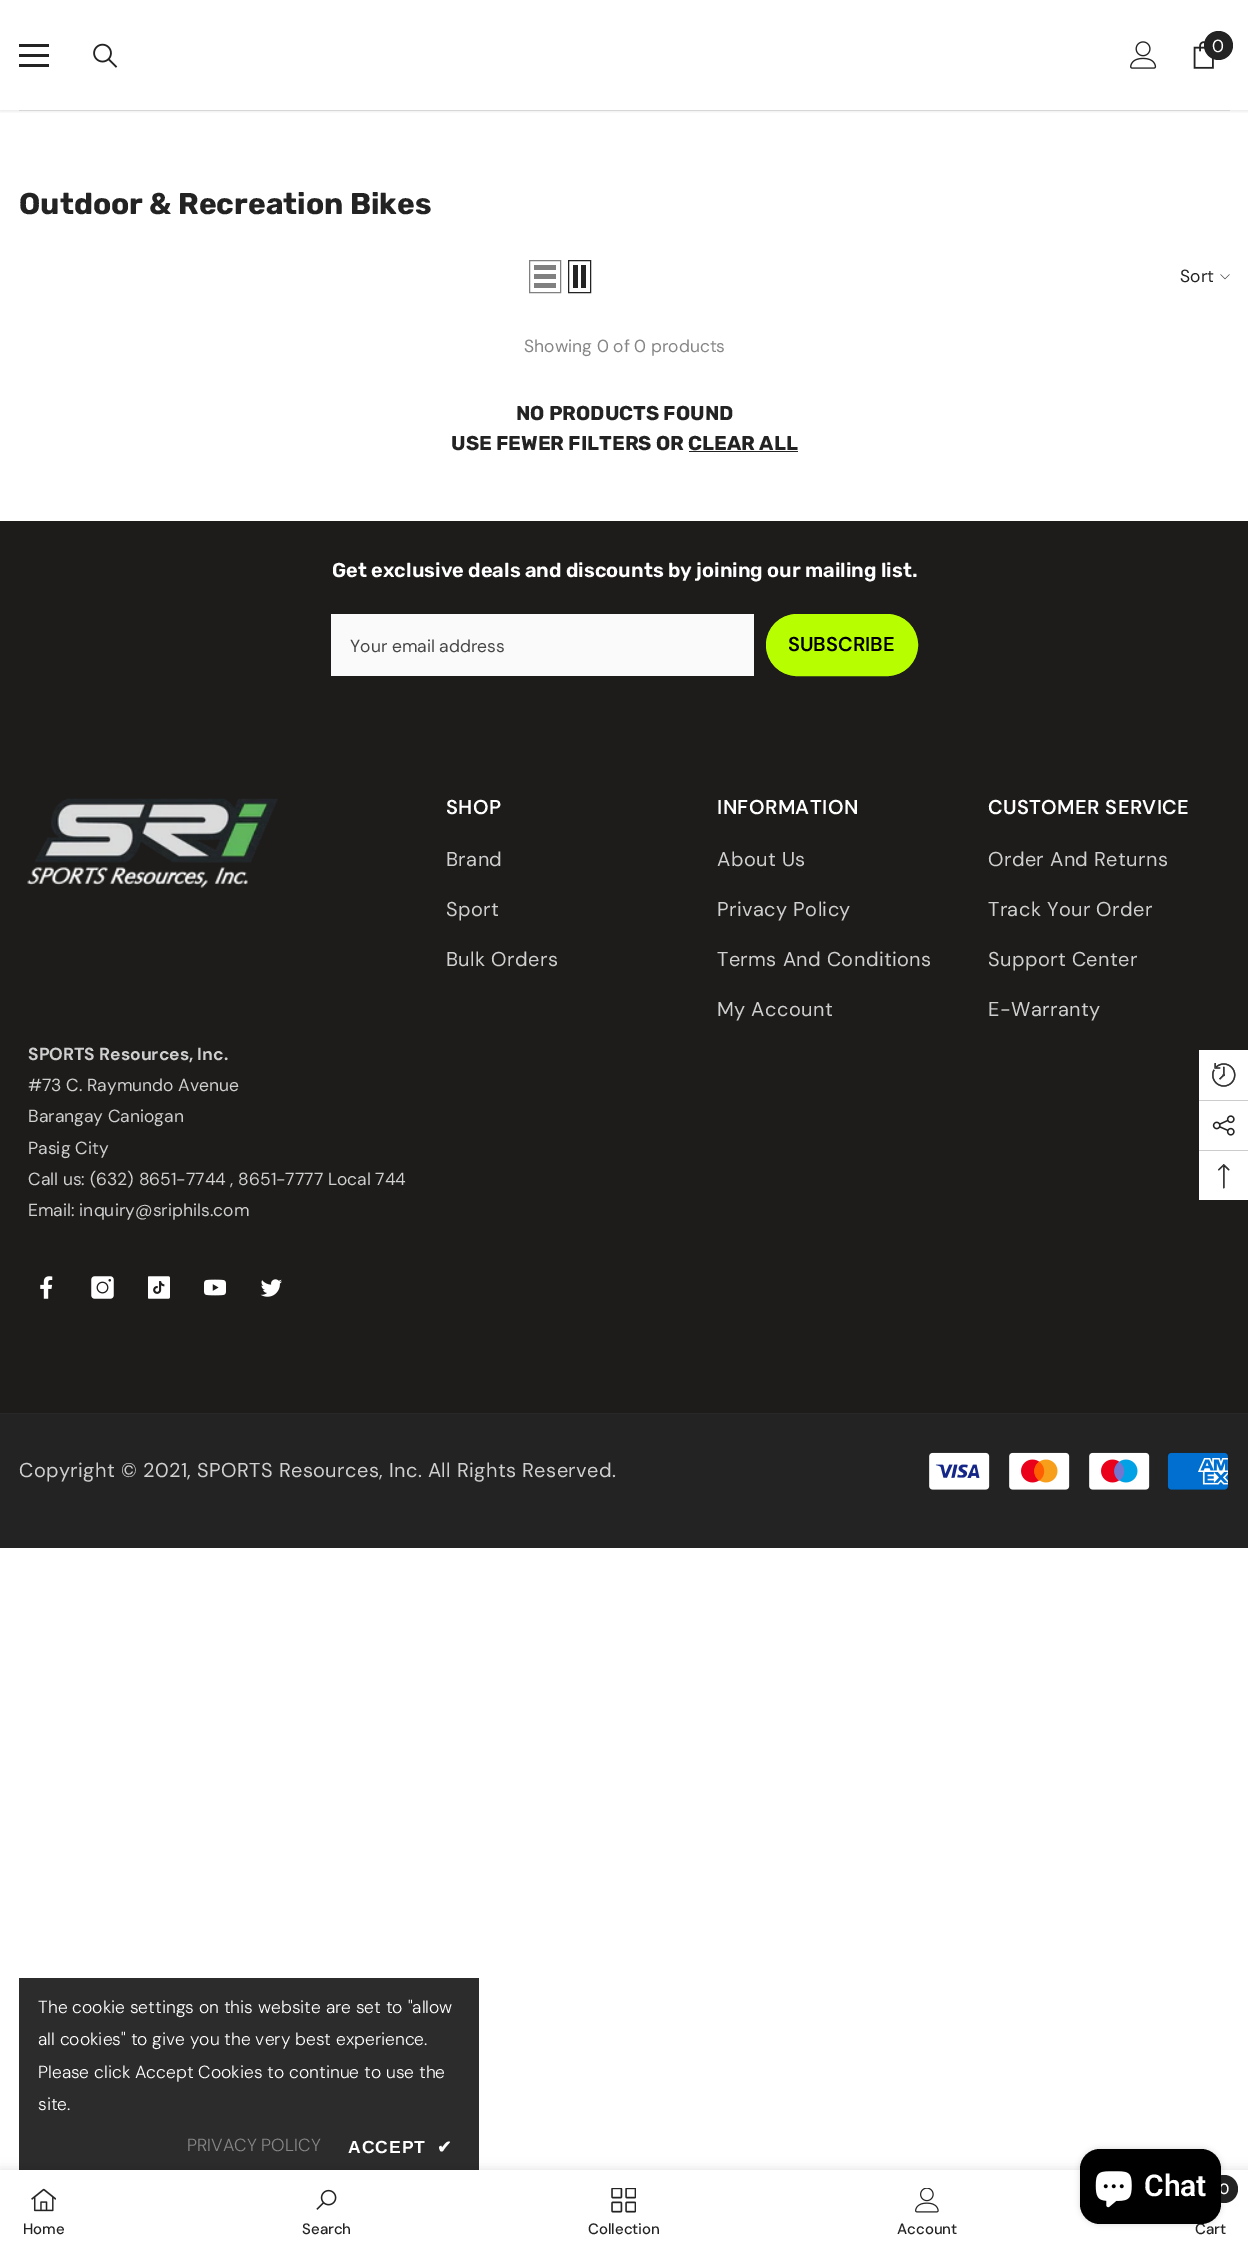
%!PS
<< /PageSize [1248 2249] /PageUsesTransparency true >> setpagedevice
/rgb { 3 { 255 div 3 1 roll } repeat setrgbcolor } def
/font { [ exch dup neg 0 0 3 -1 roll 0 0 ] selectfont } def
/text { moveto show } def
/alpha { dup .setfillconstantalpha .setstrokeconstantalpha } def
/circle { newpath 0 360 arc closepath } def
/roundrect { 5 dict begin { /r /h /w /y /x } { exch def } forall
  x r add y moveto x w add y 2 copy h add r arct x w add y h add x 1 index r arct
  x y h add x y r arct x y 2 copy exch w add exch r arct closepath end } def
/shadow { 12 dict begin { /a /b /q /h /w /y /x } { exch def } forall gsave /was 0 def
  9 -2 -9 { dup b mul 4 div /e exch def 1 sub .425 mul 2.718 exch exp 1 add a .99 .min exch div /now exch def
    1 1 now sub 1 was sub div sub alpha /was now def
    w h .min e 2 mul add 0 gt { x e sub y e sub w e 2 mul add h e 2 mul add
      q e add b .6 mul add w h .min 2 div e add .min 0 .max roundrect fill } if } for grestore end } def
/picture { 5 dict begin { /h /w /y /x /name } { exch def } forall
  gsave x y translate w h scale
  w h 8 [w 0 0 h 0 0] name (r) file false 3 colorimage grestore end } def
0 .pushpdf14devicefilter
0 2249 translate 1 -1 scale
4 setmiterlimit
255 255 255 rgb
0 0 1248 2249 rectfill
230 230 230 rgb
19 110 1211 1 rectfill
gsave
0 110 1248 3 rectclip
0 0 0 rgb
0 1 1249 110 0 2 0.1 shadow
grestore
35 35 35 rgb
19 54 30 3 rectfill
19 44 30 3 rectfill
19 64 30 3 rectfill
(img_01.rgb) 93 43 25 25 picture
(img_02.rgb) 1130 41 27 28 picture
(img_03.rgb) 1193 41 21 28 picture
1218.5 45.5 14.5 circle fill
128 128 128 rgb
529.5 260.5 31 32 rectstroke
534 283 22 5 rectfill
534 274 22 5 rectfill
534 265 22 5 rectfill
35 35 35 rgb
568.5 260.5 22 32 rectstroke
581 265 5 23 rectfill
573 265 5 23 rectfill
(img_04.rgb) 1220 274 10 6 picture
689 451 109 1 rectfill
29 28 27 rgb
0 521 1248 892 rectfill
250 250 250 rgb
331 614 423 62 rectfill
183 255 0 rgb
766.5 614.5 151 61 30.5 roundrect gsave fill grestore
stroke
(img_05.rgb) 27 798 251 90 picture
(img_06.rgb) 40 1276 13 23 picture
(img_07.rgb) 91 1276 23 23 picture
(img_08.rgb) 148 1276 22 23 picture
(img_09.rgb) 204 1279 22 17 picture
(img_10.rgb) 260 1279 22 18 picture
35 35 35 rgb
0 1414 1248 134 rectfill
40 40 40 rgb
0 1413 1248 1 rectfill
(img_11.rgb) 929 1452 61 38 picture
(img_12.rgb) 1009 1452 61 38 picture
(img_13.rgb) 1089 1452 61 38 picture
(img_14.rgb) 1167 1452 61 38 picture
44 44 44 rgb
19 1978 460 192 rectfill
0 0 0 rgb
0 2170 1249 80 0 5.5 0.12 shadow
255 255 255 rgb
0 2170 1248 79 rectfill
(img_15.rgb) 31 2188 25 24 picture
(img_16.rgb) 316 2189 21 21 picture
(img_17.rgb) 611 2188 25 25 picture
(img_18.rgb) 915 2188 24 25 picture
35 35 35 rgb
1224 2189 14 circle fill
(img_19.rgb) 1218 2210 2 3 picture
255 255 255 rgb
1199 1050 49 150 rectfill
(img_20.rgb) 1212 1063 24 24 picture
204 204 204 rgb
1199 1100 49 1 rectfill
(img_21.rgb) 1212 1115 23 21 picture
1199 1150 49 1 rectfill
(img_22.rgb) 1218 1164 12 25 picture
0 0 0 rgb
1080 2149 141 75 20 3 0.15 shadow
/DMSans-Regular 17.5 font
255 255 255 rgb
(0) 1212 52 text
/Rubik-Bold 30 font
35 35 35 rgb
(Outdoor & Recreation Bikes) 19 214 text
/DMSans-Regular 17.5 font
(Sort) 1180 282 text
134 134 134 rgb
(Showing 0 of 0 products) 524 352 text
/Rubik-Bold 20 font
35 35 35 rgb
(NO PRODUCTS FOUND) 516 420 text
(USE FEWER FILTERS OR CLEAR ALL) 451 450 text
/Rubik-SemiBold 20 font
255 255 255 rgb
(Get exclusive deals and discounts by joining our mailing list.) 332 577 text
/DMSans-Regular 17.5 font
70 70 70 rgb
(Your email address) 350 652 text
/DMSans-SemiBold 20 font
0 0 0 rgb
(SUBSCRIBE) 788 651 text
255 255 255 rgb
446 814 moveto 0.4 0 (SHOP) ashow
/DMSans-Regular 20 font
207 207 207 rgb
446 866 moveto 0.4 0 (Brand) ashow
446 916 moveto 0.4 0 (Sport) ashow
446 966 moveto 0.4 0 (Bulk Orders) ashow
/DMSans-SemiBold 20 font
255 255 255 rgb
717 814 moveto 0.4 0 (INFORMATION) ashow
/DMSans-Regular 20 font
207 207 207 rgb
717 866 moveto 0.4 0 (About Us) ashow
717 916 moveto 0.4 0 (Privacy Policy) ashow
717 966 moveto 0.4 0 (Terms And Conditions) ashow
717 1016 moveto 0.4 0 (My Account) ashow
/DMSans-SemiBold 20 font
255 255 255 rgb
988 814 moveto 0.4 0 (CUSTOMER SERVICE) ashow
/DMSans-Regular 20 font
207 207 207 rgb
988 866 moveto 0.4 0 (Order And Returns) ashow
988 916 moveto 0.4 0 (Track Your Order) ashow
988 966 moveto 0.4 0 (Support Center) ashow
988 1016 moveto 0.4 0 (E-Warranty) ashow
/DMSans-Bold 17.5 font
(SPORTS Resources, Inc.) 28 1060 text
/DMSans-Regular 17.5 font
(#73 C. Raymundo Avenue) 28 1091 text
(Barangay Caniogan) 28 1122 text
(Pasig City) 28 1154 text
(Call us: \(632\) 8651-7744 , 8651-7777 Local 744) 28 1185 text
(Email: inquiry@sriphils.com) 28 1216 text
/DMSans-Regular 20 font
19 1477 moveto 0.4 0 (Copyright © 2021, SPORTS Resources, Inc. All Rights Reserved.) ashow
/DMSans-Medium 15 font
35 35 35 rgb
(Home) 23 2234 text
(Search) 302 2234 text
(Collection) 588 2234 text
(Account) 897 2234 text
255 255 255 rgb
(0) 1219 2194 text
35 35 35 rgb
(Cart) 1195 2234 text
/DMSans-Light 17.5 font
255 255 255 rgb
(The cookie settings on this website are set to "allow) 38 2013 text
(all cookies" to give you the very best experience.) 38 2045 text
(Please click Accept Cookies to continue to use the) 38 2078 text
(site.) 38 2110 text
134 134 134 rgb
(PRIVACY POLICY) 187 2151 text
/LiberationSans-Bold 17.5 font
255 255 255 rgb
348 2153 moveto 1 0 (ACCEPT) ashow
/DejaVuSans-Bold 17.5 font
437 2153 moveto 1 0 (✔) ashow
0 0 0 rgb
1080 2149 141 75 20 roundrect fill
(img_23.rgb) 1095 2171 37 37 picture
/Roboto-SemiBold 30 font
255 255 255 rgb
(Chat) 1144 2196 text
.poppdf14devicefilter showpage
